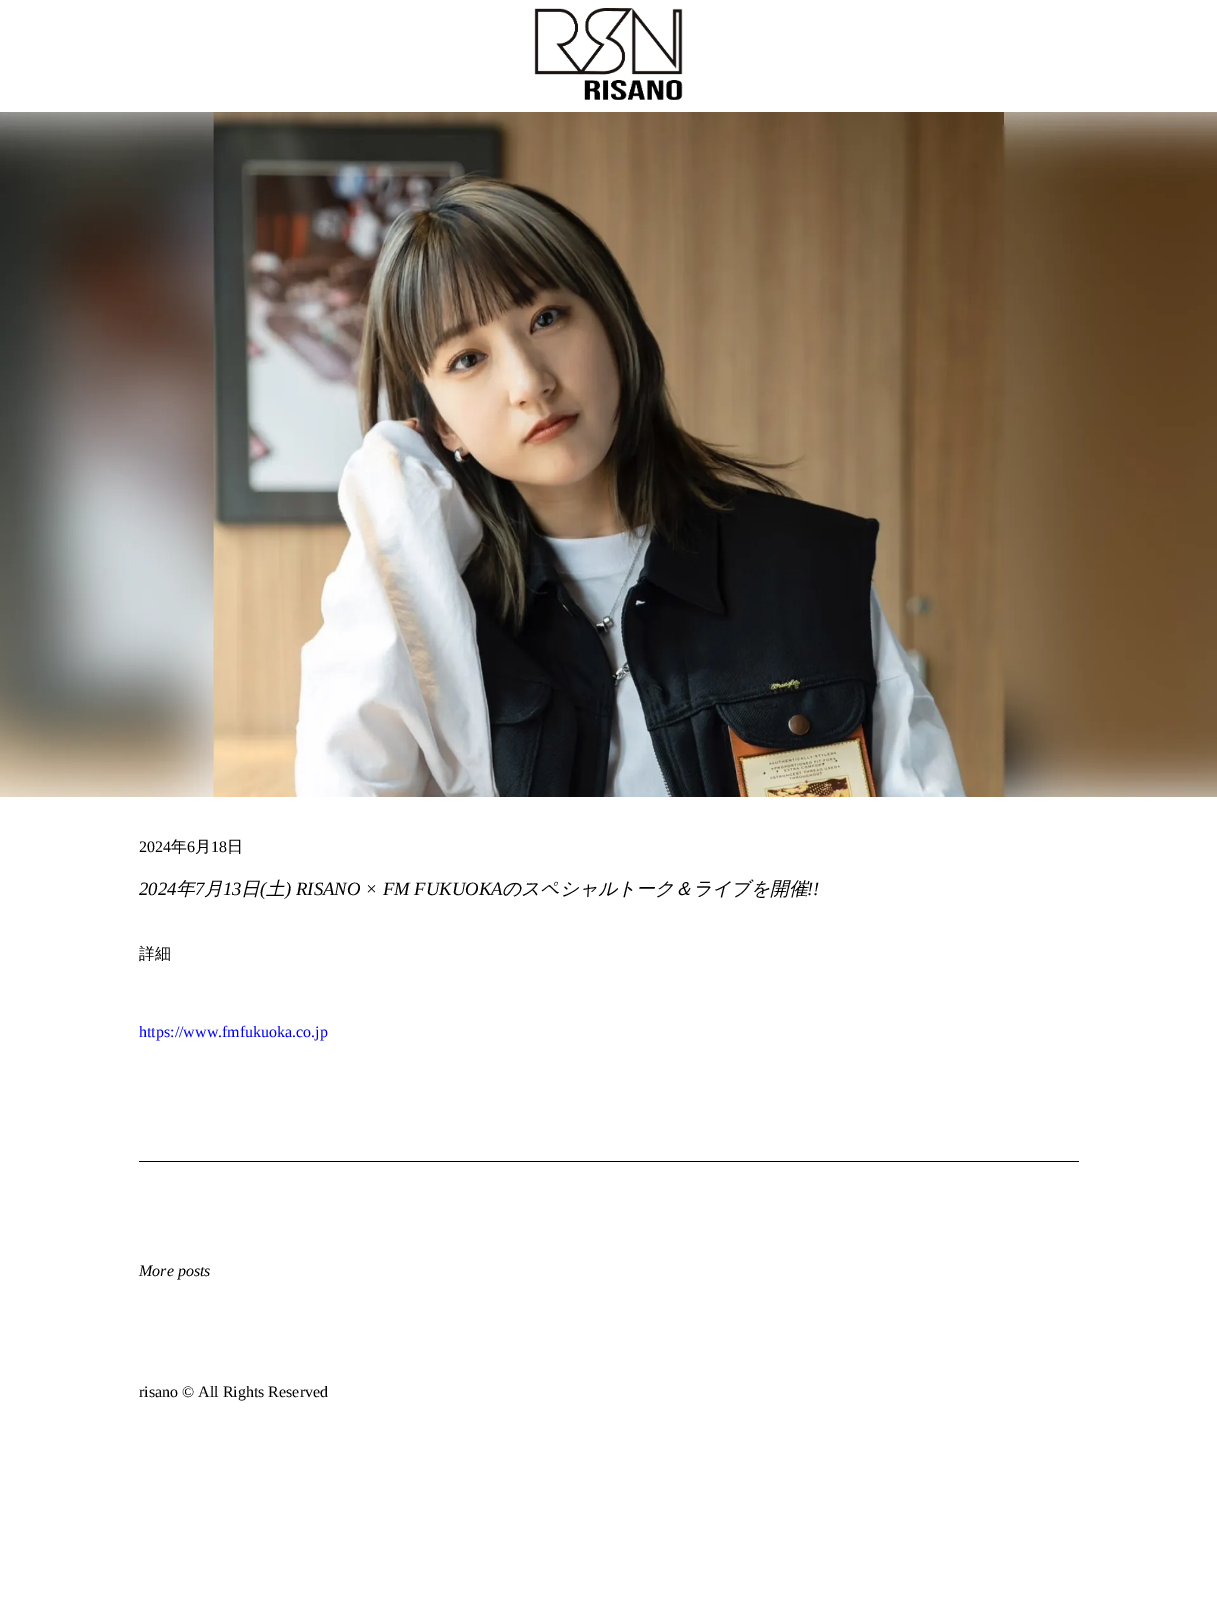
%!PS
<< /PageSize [1217 1606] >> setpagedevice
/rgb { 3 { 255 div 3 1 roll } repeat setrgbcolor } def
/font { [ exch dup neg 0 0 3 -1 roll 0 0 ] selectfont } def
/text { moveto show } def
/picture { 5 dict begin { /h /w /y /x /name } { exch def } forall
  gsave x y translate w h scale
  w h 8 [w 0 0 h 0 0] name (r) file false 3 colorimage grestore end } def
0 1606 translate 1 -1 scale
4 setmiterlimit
255 255 255 rgb
0 0 1217 1606 rectfill
(img_01.rgb) 534 8 149 92 picture
(img_02.rgb) 0 112 1217 685 picture
0 0 0 rgb
139 1161 940 1 rectfill
/LiberationSerif-Regular 16 font
(2024) 139 852 text
/WenQuanYiZenHei-Medium 16 font
(年) 171 852 text
/LiberationSerif-Regular 16 font
(6) 187 852 text
/WenQuanYiZenHei-Medium 16 font
(月) 195 852 text
/LiberationSerif-Regular 16 font
(18) 211 852 text
/WenQuanYiZenHei-Medium 16 font
(日) 227 852 text
/LiberationSerif-Italic 18.75 font
(2024) 139 895 text
/WenQuanYiZenHei-MediumItalic 18.75 font
(年) 176 895 text
/LiberationSerif-Italic 18.75 font
(7) 195 895 text
/WenQuanYiZenHei-MediumItalic 18.75 font
(月) 204 895 text
/LiberationSerif-Italic 18.75 font
(13) 223 895 text
/WenQuanYiZenHei-MediumItalic 18.75 font
(日) 241 895 text
/LiberationSerif-Italic 18.75 font
(\() 260 895 text
/WenQuanYiZenHei-MediumItalic 18.75 font
(土) 266 895 text
/LiberationSerif-Italic 18.75 font
(\) RISANO × FM FUKUOKA) 285 895 text
/WenQuanYiZenHei-MediumItalic 18.75 font
(のスペシャルトーク＆ライブを開催) 502 895 text
/LiberationSerif-Italic 18.75 font
(!!) 807 895 text
gsave
139 906 940 135 rectclip
/WenQuanYiZenHei-Medium 16 font
(詳細) 139 959 text
grestore
/LiberationSerif-Regular 16 font
0 0 238 rgb
(https://www.fmfukuoka.co.jp) 139 1037 text
/LiberationSerif-Italic 16 font
0 0 0 rgb
(More posts) 139 1276 text
/LiberationSerif-Regular 16 font
(risano © All Rights Reserved) 139 1397 text
showpage
